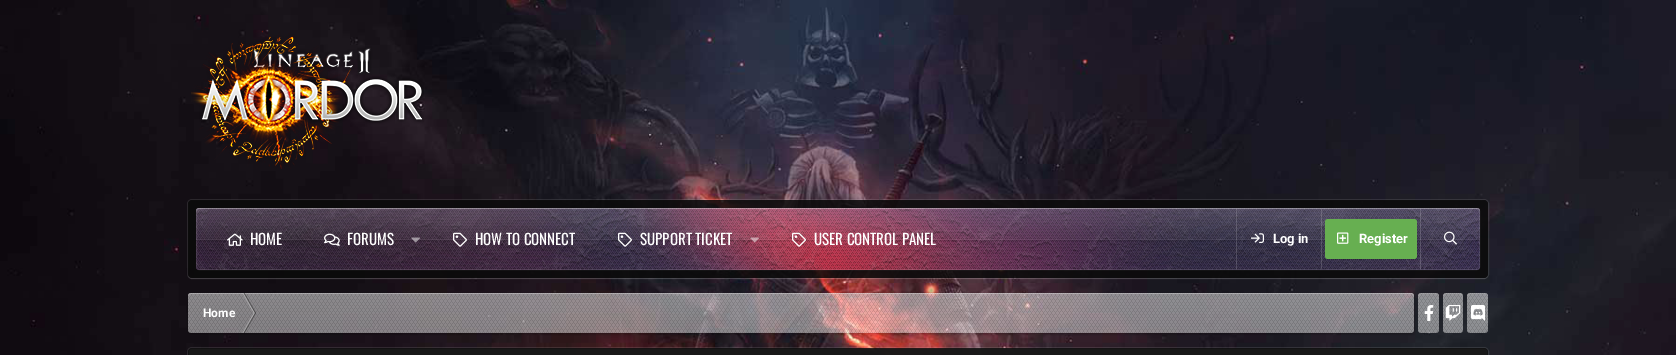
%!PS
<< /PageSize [1676 355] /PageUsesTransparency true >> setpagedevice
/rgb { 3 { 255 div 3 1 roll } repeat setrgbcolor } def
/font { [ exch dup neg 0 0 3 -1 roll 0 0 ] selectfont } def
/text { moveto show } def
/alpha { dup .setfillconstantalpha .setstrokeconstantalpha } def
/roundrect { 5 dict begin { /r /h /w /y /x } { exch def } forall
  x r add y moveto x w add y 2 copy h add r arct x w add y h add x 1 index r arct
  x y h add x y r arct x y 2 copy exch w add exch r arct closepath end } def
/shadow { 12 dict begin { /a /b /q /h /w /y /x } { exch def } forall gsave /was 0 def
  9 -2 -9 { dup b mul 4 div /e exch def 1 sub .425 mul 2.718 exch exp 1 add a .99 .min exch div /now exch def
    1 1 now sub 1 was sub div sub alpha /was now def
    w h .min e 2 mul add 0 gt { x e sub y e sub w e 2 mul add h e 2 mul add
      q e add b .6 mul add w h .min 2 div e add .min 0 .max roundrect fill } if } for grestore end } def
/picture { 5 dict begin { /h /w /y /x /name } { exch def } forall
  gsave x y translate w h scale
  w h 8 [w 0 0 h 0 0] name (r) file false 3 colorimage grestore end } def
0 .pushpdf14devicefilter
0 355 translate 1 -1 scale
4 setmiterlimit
255 255 255 rgb
0 0 1676 355 rectfill
(img_01.rgb) 0 0 1676 355 picture
(img_02.rgb) 191 30 233 139 picture
0.1 alpha
188 274 moveto 0 1 rlineto 0 2 2 4 4 4 rcurveto 1292 0 rlineto 2 0 4 -2 4 -4 rcurveto 0 -1 rlineto 0 2 -2 4 -4 4 rcurveto -1292 0 rlineto -2 0 -4 -2 -4 -4 rcurveto closepath fill
187.5 199.5 1301 79 4.5 roundrect stroke
0.85 alpha
10 10 10 rgb
188 200 1300 78 4 roundrect fill
gsave
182 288 moveto 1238 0 rlineto 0 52 rlineto -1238 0 rlineto closepath 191 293 moveto 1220 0 rlineto 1.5 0 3 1.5 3 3 rcurveto 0 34 rlineto 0 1.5 -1.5 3 -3 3 rcurveto -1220 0 rlineto -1.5 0 -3 -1.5 -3 -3 rcurveto 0 -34 rlineto 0 -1.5 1.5 -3 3 -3 rcurveto closepath eoclip newpath
1 alpha
0 0 0 rgb
188 294 1226 40 3 1.5 0.3 shadow
grestore
0.3 alpha
255 255 255 rgb
188 293 1226 40 3 roundrect fill
1 alpha
(img_15.rgb) 188 293 1226 40 picture
0.3 alpha
191 294 moveto 1220 0 rlineto 2 0 3 1 3 3 rcurveto 0 -1 rlineto 0 -2 -1 -3 -3 -3 rcurveto -1220 0 rlineto -2 0 -3 1 -3 3 rcurveto 0 1 rlineto 0 -2 1 -3 3 -3 rcurveto closepath fill
0.38 alpha
242.5 293 moveto 1 0 rlineto 11.5 20 rlineto -1 0 rlineto closepath fill
0.4 alpha
0 0 0 rgb
243.5 293 moveto 1 0 rlineto 11.5 20 rlineto -1 0 rlineto closepath fill
0.38 alpha
255 255 255 rgb
254 313 moveto 1 0 rlineto -11.5 20 rlineto -1 0 rlineto closepath fill
0.4 alpha
0 0 0 rgb
255 313 moveto 1 0 rlineto -11.5 20 rlineto -1 0 rlineto closepath fill
0.3 alpha
255 255 255 rgb
1418 293 21 40 3 roundrect fill
1 alpha
(img_16.rgb) 1418 293 21 40 picture
0.15 alpha
1421 294 moveto 7 0 rlineto 3 0 10 -1.5 11 2.5 rcurveto 0 -3.5 -2.5 -3.5 -5.5 -3.5 rcurveto -10 0 rlineto -4.5 0 -5.5 0.5 -5.5 5 rcurveto 0 -2 1 -4 3 -4 rcurveto closepath fill
1 alpha
(img_17.rgb) 1424 305 10 16 picture
0.3 alpha
1443 293 20 40 3 roundrect fill
1 alpha
(img_18.rgb) 1443 293 20 40 picture
0.15 alpha
1446 294 moveto 6.5 0 rlineto 3 0 9.5 -1 10.5 2.5 rcurveto 0 -3.5 -2 -3.5 -5.5 -3.5 rcurveto -9 0 rlineto -4.5 0 -5.5 0.5 -5.5 5 rcurveto 0 -2 1 -4 3 -4 rcurveto closepath fill
1 alpha
(img_19.rgb) 1445 305 16 16 picture
0.3 alpha
1467 293 21 40 3 roundrect fill
1 alpha
(img_20.rgb) 1467 293 21 40 picture
0.15 alpha
1470 294 moveto 7 0 rlineto 3 0 10 -1.5 11 2.5 rcurveto 0 -3.5 -2.5 -3.5 -5.5 -3.5 rcurveto -10 0 rlineto -4.5 0 -5.5 0.5 -5.5 5 rcurveto 0 -2 1 -4 3 -4 rcurveto closepath fill
1 alpha
(img_21.rgb) 1471 305 14 16 picture
0.1 alpha
187.5 347.5 1301 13 4.5 roundrect stroke
0.85 alpha
16 16 16 rgb
188 348 1300 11 4 roundrect fill
25 25 25 rgb
192 349 moveto 1292 0 rlineto 1.5 0 3 1.5 3 3 rcurveto 0 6 rlineto -1298 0 rlineto 0 -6 rlineto 0 -1.5 1.5 -3 3 -3 rcurveto closepath fill
gsave
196 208 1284 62 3 roundrect clip newpath
1 alpha
47 0 82 rgb
161 173 1354 132 0 35 1 shadow
grestore
1 alpha
(img_03.rgb) 196 208 1284 62 picture
0.1 alpha
255 255 255 rgb
196 208 1284 62 3 roundrect fill
1 alpha
(img_04.rgb) 196 208 1284 62 picture
0.3 alpha
199 209 moveto -2 0 -3 1 -3 3 rcurveto 0 -1 rlineto 0 -2 1 -3 3 -3 rcurveto 1278 0 rlineto 2 0 3 1 3 3 rcurveto 0 1 rlineto 0 -2 -1 -3 -3 -3 rcurveto closepath fill
0.1 alpha
196.5 208.5 1283 61 2.5 roundrect stroke
1 alpha
(img_05.rgb) 227 233 16 13 picture
(img_06.rgb) 324 233 16 13 picture
(img_07.rgb) 411 237 9 6 picture
(img_08.rgb) 453 232 14 15 picture
(img_09.rgb) 618 232 14 15 picture
(img_10.rgb) 750 237 9 6 picture
(img_11.rgb) 792 232 14 15 picture
0.15 alpha
1236 209 1 60 rectfill
1 alpha
(img_12.rgb) 1251 233 13 10 picture
0.15 alpha
1321 209 1 60 rectfill
1 alpha
103 175 81 rgb
1325 219 92 40 3 roundrect fill
(img_13.rgb) 1337 232 12 12 picture
0.15 alpha
255 255 255 rgb
1420 209 1 60 rectfill
1 alpha
(img_14.rgb) 1444 231 13 14 picture
/Oswald-Regular 15 font
(HOME) 250 245 text
(FORUMS) 347 245 text
(HOW TO CONNECT) 475 245 text
(SUPPORT TICKET) 640 245 text
(USER CONTROL PANEL) 814 245 text
/Roboto-Bold 13 font
(Log in) 1273 243 text
(Register) 1359 243 text
/Roboto-Bold 12 font
(Home) 203 317 text
.poppdf14devicefilter showpage
